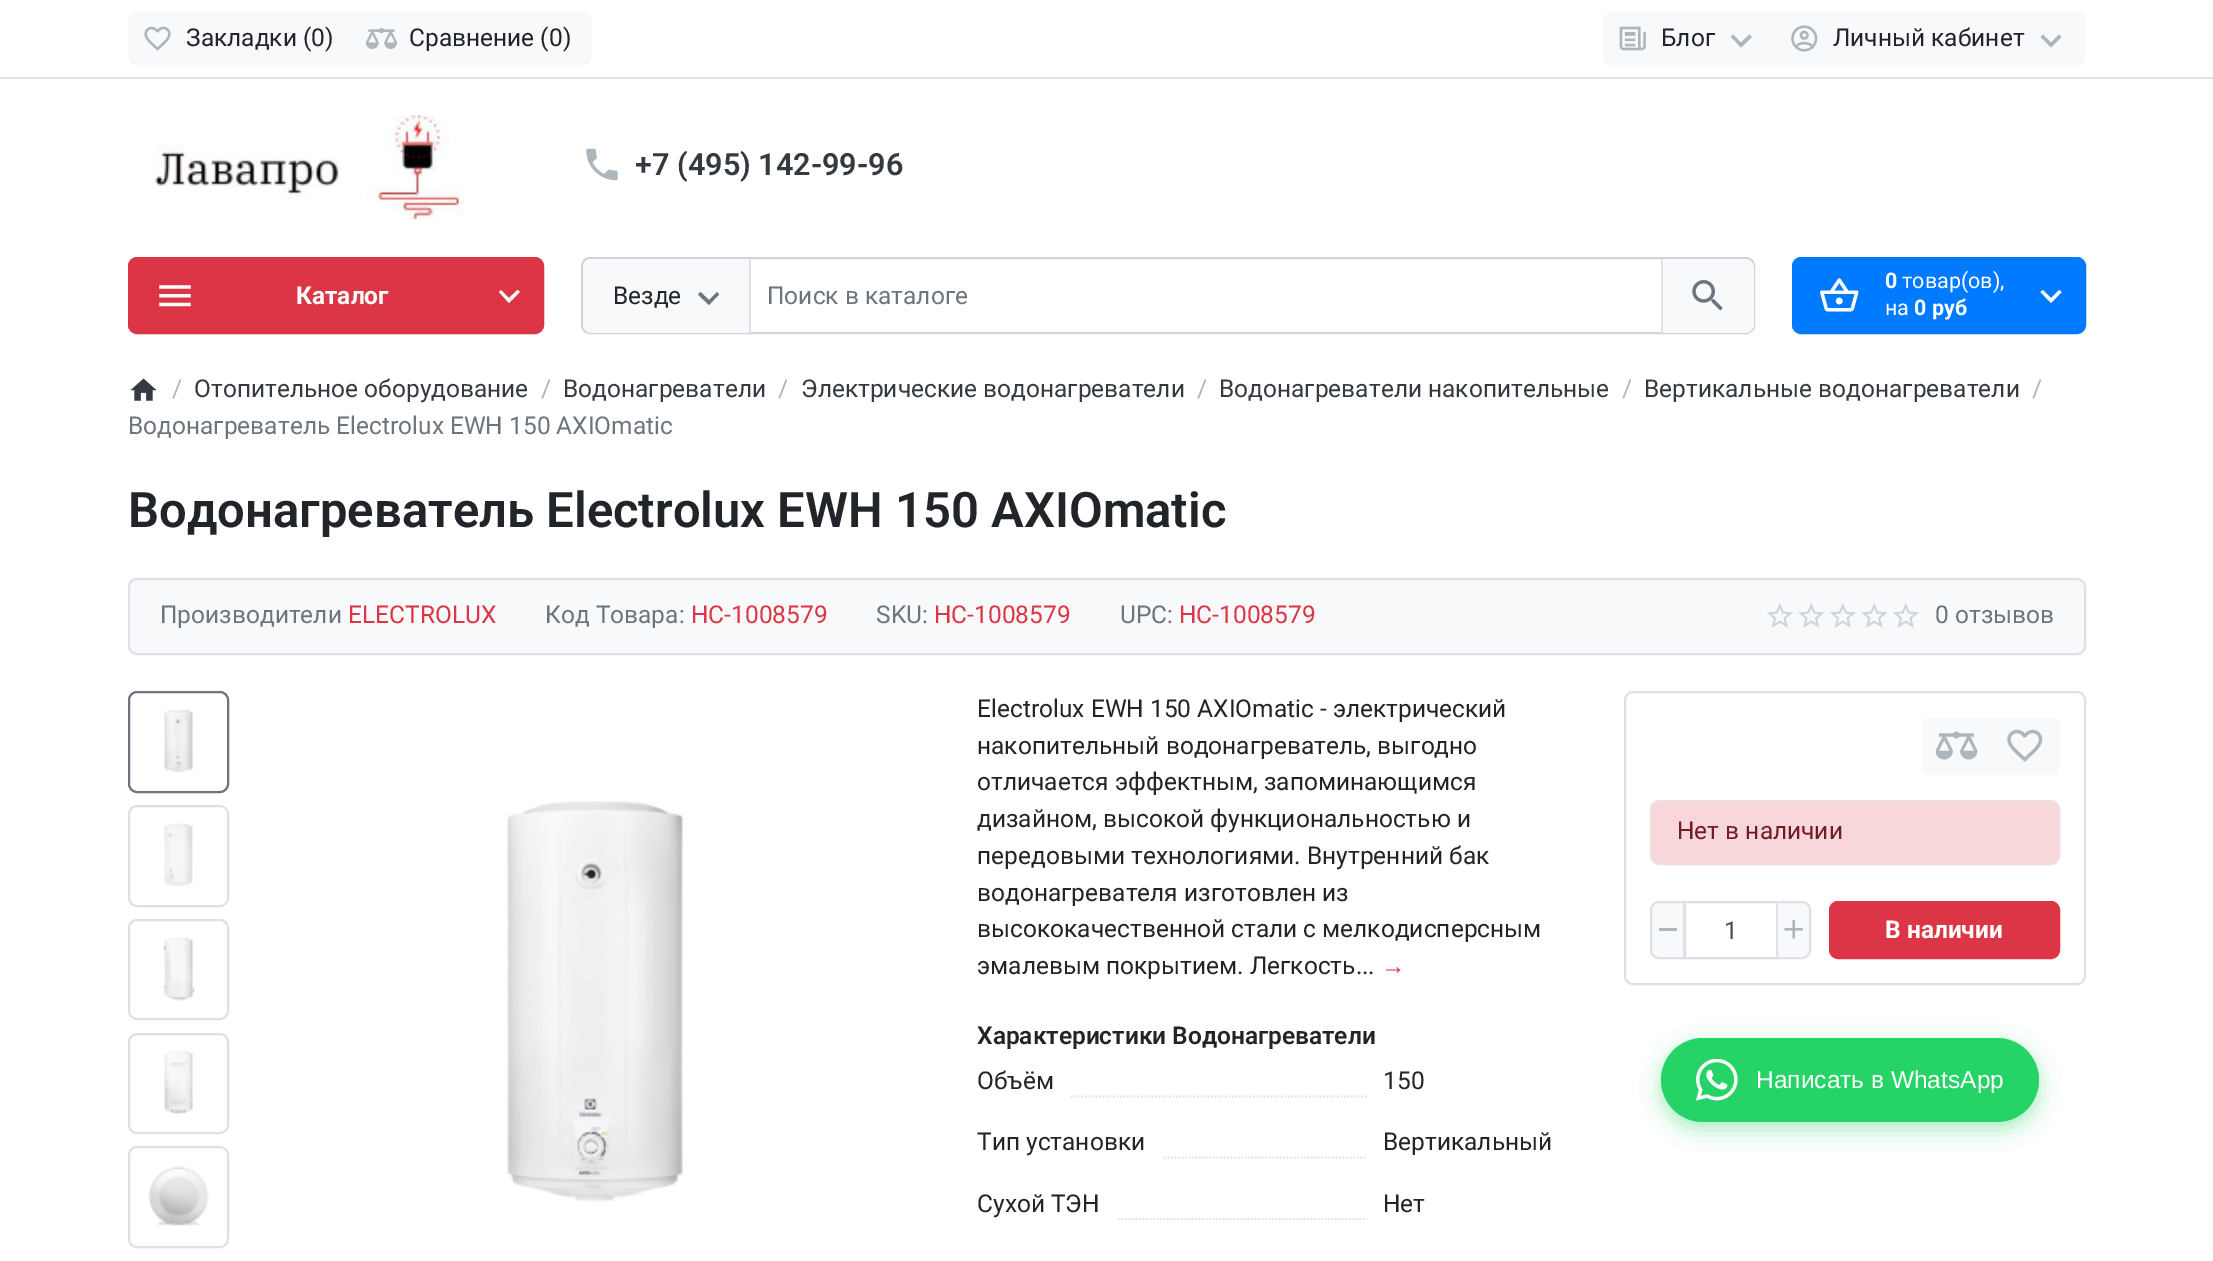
%!PS
<< /PageSize [2213 1261] /PageUsesTransparency true >> setpagedevice
/rgb { 3 { 255 div 3 1 roll } repeat setrgbcolor } def
/font { [ exch dup neg 0 0 3 -1 roll 0 0 ] selectfont } def
/text { moveto show } def
/alpha { dup .setfillconstantalpha .setstrokeconstantalpha } def
/roundrect { 5 dict begin { /r /h /w /y /x } { exch def } forall
  x r add y moveto x w add y 2 copy h add r arct x w add y h add x 1 index r arct
  x y h add x y r arct x y 2 copy exch w add exch r arct closepath end } def
/shadow { 12 dict begin { /a /b /q /h /w /y /x } { exch def } forall gsave /was 0 def
  9 -2 -9 { dup b mul 4 div /e exch def 1 sub .425 mul 2.718 exch exp 1 add a .99 .min exch div /now exch def
    1 1 now sub 1 was sub div sub alpha /was now def
    w h .min e 2 mul add 0 gt { x e sub y e sub w e 2 mul add h e 2 mul add
      q e add b .6 mul add w h .min 2 div e add .min 0 .max roundrect fill } if } for grestore end } def
/picture { 5 dict begin { /h /w /y /x /name } { exch def } forall
  gsave x y translate w h scale
  w h 8 [w 0 0 h 0 0] name (r) file false 3 colorimage grestore end } def
0 .pushpdf14devicefilter
0 1261 translate 1 -1 scale
4 setmiterlimit
255 255 255 rgb
0 0 2213 1261 rectfill
222 226 230 rgb
0 77 2213 2 rectfill
248 249 250 rgb
137 12 moveto 217 0 rlineto 0 53 rlineto -217 0 rlineto -5 0 -9 -4 -9 -9 rcurveto 0 -35 rlineto 0 -5 4 -9 9 -9 rcurveto closepath fill
(img_01.rgb) 144 26 27 25 picture
352 12 moveto 231 0 rlineto 5 0 9 4 9 9 rcurveto 0 35 rlineto 0 5 -4 9 -9 9 rcurveto -231 0 rlineto closepath fill
(img_02.rgb) 366 28 31 21 picture
1612 12 moveto 164 0 rlineto 0 53 rlineto -164 0 rlineto -5 0 -9 -4 -9 -9 rcurveto 0 -35 rlineto 0 -5 4 -9 9 -9 rcurveto closepath fill
(img_03.rgb) 1619 26 27 25 picture
173 181 189 rgb
1733 34.5 moveto 8 8 rlineto 8.5 -8 rlineto 2.5 2.5 rlineto -11 10.5 rlineto -10 -10.5 rlineto closepath fill
248 249 250 rgb
1775 12 moveto 302 0 rlineto 5 0 9 4 9 9 rcurveto 0 35 rlineto 0 5 -4 9 -9 9 rcurveto -302 0 rlineto closepath fill
(img_04.rgb) 1791 25 27 27 picture
173 181 189 rgb
2043 34.5 moveto 8 8 rlineto 8 -8 rlineto 2.5 2.5 rlineto -10.5 10.5 rlineto -10.5 -10.5 rlineto closepath fill
(img_05.rgb) 155 115 309 106 picture
(img_06.rgb) 586 148 32 33 picture
220 53 69 rgb
129 258 414 75 8 roundrect gsave fill grestore
2 setlinewidth
stroke
(img_07.rgb) 159 285 32 22 picture
255 255 255 rgb
501 290 moveto 8 8 rlineto 8.5 -8 rlineto 2.5 2 rlineto -11 11 rlineto -10 -11 rlineto closepath fill
206 212 218 rgb
582 258 1172 75 8 roundrect stroke
248 249 250 rgb
592 259 moveto 159 0 rlineto 0 74 rlineto -159 0 rlineto -5 0 -9 -4 -9 -9 rcurveto 0 -56 rlineto 0 -5 4 -9 9 -9 rcurveto closepath fill
222 226 230 rgb
749 259 2 74 rectfill
108 117 125 rgb
700.5 292 moveto 8.5 8 rlineto 8 -8 rlineto 2 2.5 rlineto -10 10.5 rlineto -11 -10.5 rlineto closepath fill
248 249 250 rgb
1661 259 moveto 84 0 rlineto 5 0 9 4 9 9 rcurveto 0 56 rlineto 0 5 -4 9 -9 9 rcurveto -84 0 rlineto closepath fill
222 226 230 rgb
1661 259 2 74 rectfill
(img_08.rgb) 1692 280 31 31 picture
0 123 255 rgb
1793 258 292 75 8 roundrect gsave fill grestore
stroke
(img_09.rgb) 1820 278 39 34 picture
255 255 255 rgb
2043 290 moveto 8 8 rlineto 8 -8 rlineto 2.5 2 rlineto -10.5 11 rlineto -10.5 -11 rlineto closepath fill
(img_10.rgb) 130 378 27 23 picture
248 249 250 rgb
129 579 1956 75 8 roundrect gsave fill grestore
222 226 230 rgb
stroke
(img_11.rgb) 1767 603 26 25 picture
(img_12.rgb) 1798 603 26 25 picture
(img_11.rgb) 1830 603 26 25 picture
(img_12.rgb) 1861 603 26 25 picture
(img_11.rgb) 1893 603 26 25 picture
108 117 125 rgb
129 692 99 100 8 roundrect stroke
(img_13.rgb) 164 709 29 64 picture
222 226 230 rgb
129 806 99 100 8 roundrect stroke
(img_14.rgb) 164 823 29 64 picture
129 920 99 99 8 roundrect stroke
(img_15.rgb) 162 937 33 65 picture
129 1034 99 99 8 roundrect stroke
(img_16.rgb) 164 1050 29 64 picture
129 1147 99 100 8 roundrect stroke
(img_17.rgb) 148 1165 61 61 picture
(img_18.rgb) 507 801 176 401 picture
1.8 setlinewidth
[1.75 1.75] 0 setdash
1071 1096.5 moveto 296 0 rlineto stroke
1164 1157.5 moveto 203 0 rlineto stroke
1118 1219 moveto 249 0 rlineto stroke
2 setlinewidth
[] 0 setdash
1625 692 460 292 8 roundrect stroke
248 249 250 rgb
1929 718 moveto 63 0 rlineto 0 57 rlineto -63 0 rlineto -4 0 -7 -3 -7 -7 rcurveto 0 -43 rlineto 0 -4 3 -7 7 -7 rcurveto closepath fill
(img_19.rgb) 1936 731 42 29 picture
1990 718 moveto 63 0 rlineto 4 0 7 3 7 7 rcurveto 0 43 rlineto 0 4 -3 7 -7 7 rcurveto -63 0 rlineto closepath fill
(img_20.rgb) 2007 729 36 33 picture
248 215 218 rgb
1651 801 408 63 8 roundrect gsave fill grestore
242 222 222 rgb
stroke
222 226 230 rgb
1685 902 92 56 rectstroke
248 249 250 rgb
1659 902 moveto 25 0 rlineto 0 56 rlineto -25 0 rlineto -4.5 0 -8 -3.5 -8 -8 rcurveto 0 -40 rlineto 0 -4.5 3.5 -8 8 -8 rcurveto closepath gsave fill grestore
222 226 230 rgb
stroke
173 181 189 rgb
1659 928 18 3 rectfill
248 249 250 rgb
1777 902 moveto 25 0 rlineto 4.5 0 8 3.5 8 8 rcurveto 0 40 rlineto 0 4.5 -3.5 8 -8 8 rcurveto -25 0 rlineto closepath gsave fill grestore
222 226 230 rgb
stroke
(img_21.rgb) 1784 920 19 19 picture
220 53 69 rgb
1830 902 229 56 8 roundrect gsave fill grestore
stroke
37 211 102 rgb
1661 1045 378 84 42 10.5 0.4 shadow
1661 1038 378 84 42 roundrect fill
(img_22.rgb) 1696 1059 42 42 picture
/Roboto-Regular 24.5 font
33 37 41 rgb
(Закладки \(0\)) 186 46 text
(Сравнение \(0\)) 409 46 text
(Блог) 1661 46 text
(Личный кабинет) 1833 46 text
/Roboto-SemiBold 30.6 font
52 58 64 rgb
(+7 \(495\) 142-99-96) 635 175 text
/Roboto-Bold 24.5 font
255 255 255 rgb
(Каталог) 296 304 text
/Roboto-Regular 24.5 font
33 37 41 rgb
(Везде) 613 304 text
108 117 125 rgb
(Поиск в каталоге) 767 304 text
/Roboto-Bold 21.5 font
255 255 255 rgb
(0) 1885 288 text
/Roboto-Regular 21.5 font
(товар\(ов\),) 1902 288 text
(на) 1885 315 text
/Roboto-Bold 21.5 font
(0 руб) 1914 315 text
/Roboto-Regular 24.5 font
173 181 189 rgb
(/) 172 397 text
52 58 64 rgb
(Отопительное оборудование) 194 397 text
173 181 189 rgb
(/) 541 397 text
52 58 64 rgb
(Водонагреватели) 563 397 text
173 181 189 rgb
(/) 778 397 text
52 58 64 rgb
(Электрические водонагреватели) 801 397 text
173 181 189 rgb
(/) 1197 397 text
52 58 64 rgb
(Водонагреватели накопительные) 1219 397 text
173 181 189 rgb
(/) 1622 397 text
52 58 64 rgb
(Вертикальные водонагреватели) 1644 397 text
173 181 189 rgb
(/) 2032 397 text
108 117 125 rgb
(Водонагреватель Electrolux EWH 150 AXIOmatic) 128 434 text
/Roboto-SemiBold 49 font
33 37 41 rgb
(Водонагреватель Electrolux EWH 150 AXIOmatic) 128 527 text
/Roboto-Regular 24.5 font
108 117 125 rgb
(Производители) 160 623 text
220 53 69 rgb
(ELECTROLUX) 348 623 text
108 117 125 rgb
(Код Товара:) 545 623 text
220 53 69 rgb
(НС-1008579) 691 623 text
108 117 125 rgb
(SKU:) 876 623 text
220 53 69 rgb
(НС-1008579) 934 623 text
108 117 125 rgb
(UPC:) 1120 623 text
220 53 69 rgb
(НС-1008579) 1179 623 text
108 117 125 rgb
(0 отзывов) 1935 623 text
33 37 41 rgb
(Electrolux EWH 150 AXIOmatic - электрический) 977 717 text
(накопительный водонагреватель, выгодно) 977 754 text
(отличается эффектным, запоминающимся) 977 790 text
(дизайном, высокой функциональностью и) 977 827 text
(передовыми технологиями. Внутренний бак) 977 864 text
(водонагревателя изготовлен из) 977 901 text
(высококачественной стали с мелкодисперсным) 977 937 text
(эмалевым покрытием. Легкость...) 977 974 text
/LiberationSans-Regular 24.5 font
220 53 69 rgb
(→) 1381 974 text
/Roboto-SemiBold 24.5 font
33 37 41 rgb
(Характеристики Водонагреватели) 977 1044 text
/Roboto-Regular 24.5 font
(Объём) 977 1089 text
(150) 1383 1089 text
(Тип установки) 977 1150 text
(Вертикальный) 1383 1150 text
(Сухой ТЭН) 977 1212 text
(Нет) 1383 1212 text
114 28 36 rgb
(Нет в наличии) 1677 839 text
73 80 87 rgb
(1) 1724 939 text
/Roboto-Bold 24.5 font
255 255 255 rgb
(В наличии) 1885 938 text
/LiberationSans-Regular 24.5 font
(Написать в WhatsApp) 1756 1088 text
.poppdf14devicefilter showpage
